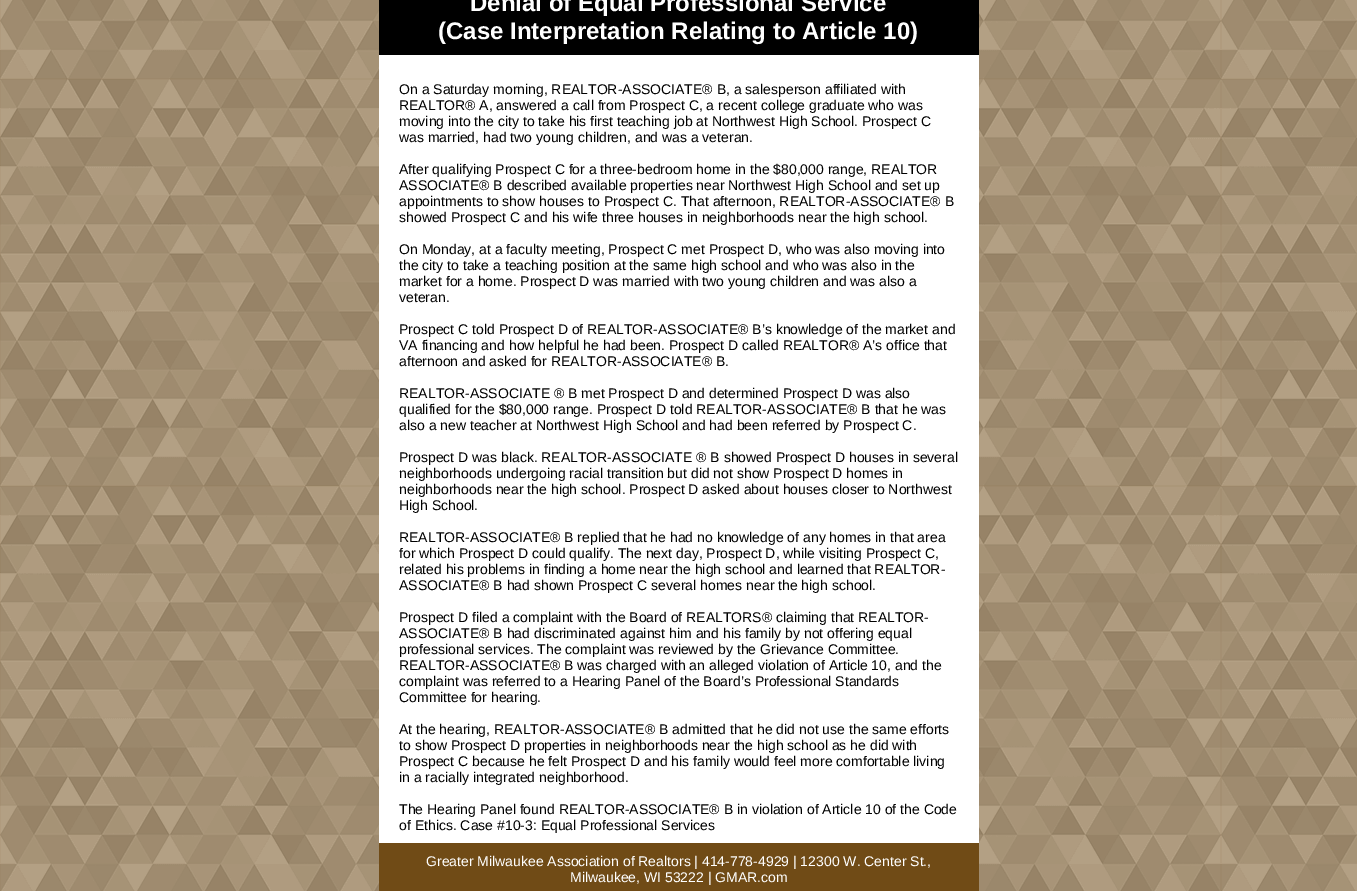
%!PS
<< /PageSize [1357 891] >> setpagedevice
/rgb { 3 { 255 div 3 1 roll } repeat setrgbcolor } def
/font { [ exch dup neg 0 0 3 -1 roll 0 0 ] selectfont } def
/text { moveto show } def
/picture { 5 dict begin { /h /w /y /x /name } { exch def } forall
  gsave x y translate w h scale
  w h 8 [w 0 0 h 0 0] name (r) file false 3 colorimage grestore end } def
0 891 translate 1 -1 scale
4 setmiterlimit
112 75 22 rgb
0 0 1357 891 rectfill
(img_01.rgb) 0 0 1357 891 picture
0 0 0 rgb
379 0 600 55 rectfill
255 255 255 rgb
379 55 600 788 rectfill
112 75 22 rgb
379 843 600 48 rectfill
/LiberationSans-Bold 24 font
255 255 255 rgb
(Denial of Equal Professional Service) 470 11 text
(\(Case Interpretation Relating to Article 10\)) 438 39 text
/LiberationSans-Regular 14 font
0 0 0 rgb
(On a Saturday morning, REALTOR-ASSOCIATE® B, a salesperson affiliated with) 399 94 text
(REALTOR® A, answered a call from Prospect C, a recent college graduate who was) 399 110 text
(moving into the city to take his first teaching job at Northwest High School. Prospect C) 399 126 text
(was married, had two young children, and was a veteran.) 399 142 text
(After qualifying Prospect C for a three-bedroom home in the $80,000 range, REALTOR) 399 174 text
(ASSOCIATE® B described available properties near Northwest High School and set up) 399 190 text
(appointments to show houses to Prospect C. That afternoon, REALTOR-ASSOCIATE® B) 399 206 text
(showed Prospect C and his wife three houses in neighborhoods near the high school.) 399 222 text
(On Monday, at a faculty meeting, Prospect C met Prospect D, who was also moving into) 399 254 text
(the city to take a teaching position at the same high school and who was also in the) 399 270 text
(market for a home. Prospect D was married with two young children and was also a) 399 286 text
(veteran.) 399 302 text
(Prospect C told Prospect D of REALTOR-ASSOCIATE® B’s knowledge of the market and) 399 334 text
(VA financing and how helpful he had been. Prospect D called REALTOR® A’s office that) 399 350 text
(afternoon and asked for REALTOR-ASSOCIATE® B.) 399 366 text
(REALTOR-ASSOCIATE ® B met Prospect D and determined Prospect D was also) 399 398 text
(qualified for the $80,000 range. Prospect D told REALTOR-ASSOCIATE® B that he was) 399 414 text
(also a new teacher at Northwest High School and had been referred by Prospect C.) 399 430 text
(Prospect D was black. REALTOR-ASSOCIATE ® B showed Prospect D houses in several) 399 462 text
(neighborhoods undergoing racial transition but did not show Prospect D homes in) 399 478 text
(neighborhoods near the high school. Prospect D asked about houses closer to Northwest) 399 494 text
(High School.) 399 510 text
(REALTOR-ASSOCIATE® B replied that he had no knowledge of any homes in that area) 399 542 text
(for which Prospect D could qualify. The next day, Prospect D, while visiting Prospect C,) 399 558 text
(related his problems in finding a home near the high school and learned that REALTOR-) 399 574 text
(ASSOCIATE® B had shown Prospect C several homes near the high school.) 399 590 text
(Prospect D filed a complaint with the Board of REALTORS® claiming that REALTOR-) 399 622 text
(ASSOCIATE® B had discriminated against him and his family by not offering equal) 399 638 text
(professional services. The complaint was reviewed by the Grievance Committee.) 399 654 text
(REALTOR-ASSOCIATE® B was charged with an alleged violation of Article 10, and the) 399 670 text
(complaint was referred to a Hearing Panel of the Board’s Professional Standards) 399 686 text
(Committee for hearing.) 399 702 text
(At the hearing, REALTOR-ASSOCIATE® B admitted that he did not use the same efforts) 399 734 text
(to show Prospect D properties in neighborhoods near the high school as he did with) 399 750 text
(Prospect C because he felt Prospect D and his family would feel more comfortable living) 399 766 text
(in a racially integrated neighborhood.) 399 782 text
(The Hearing Panel found REALTOR-ASSOCIATE® B in violation of Article 10 of the Code) 399 814 text
(of Ethics. Case #10-3: Equal Professional Services) 399 830 text
255 255 255 rgb
(Greater Milwaukee Association of Realtors | 414-778-4929 | 12300 W. Center St.,) 426 866 text
(Milwaukee, WI 53222 | GMAR.com) 570 882 text
showpage
